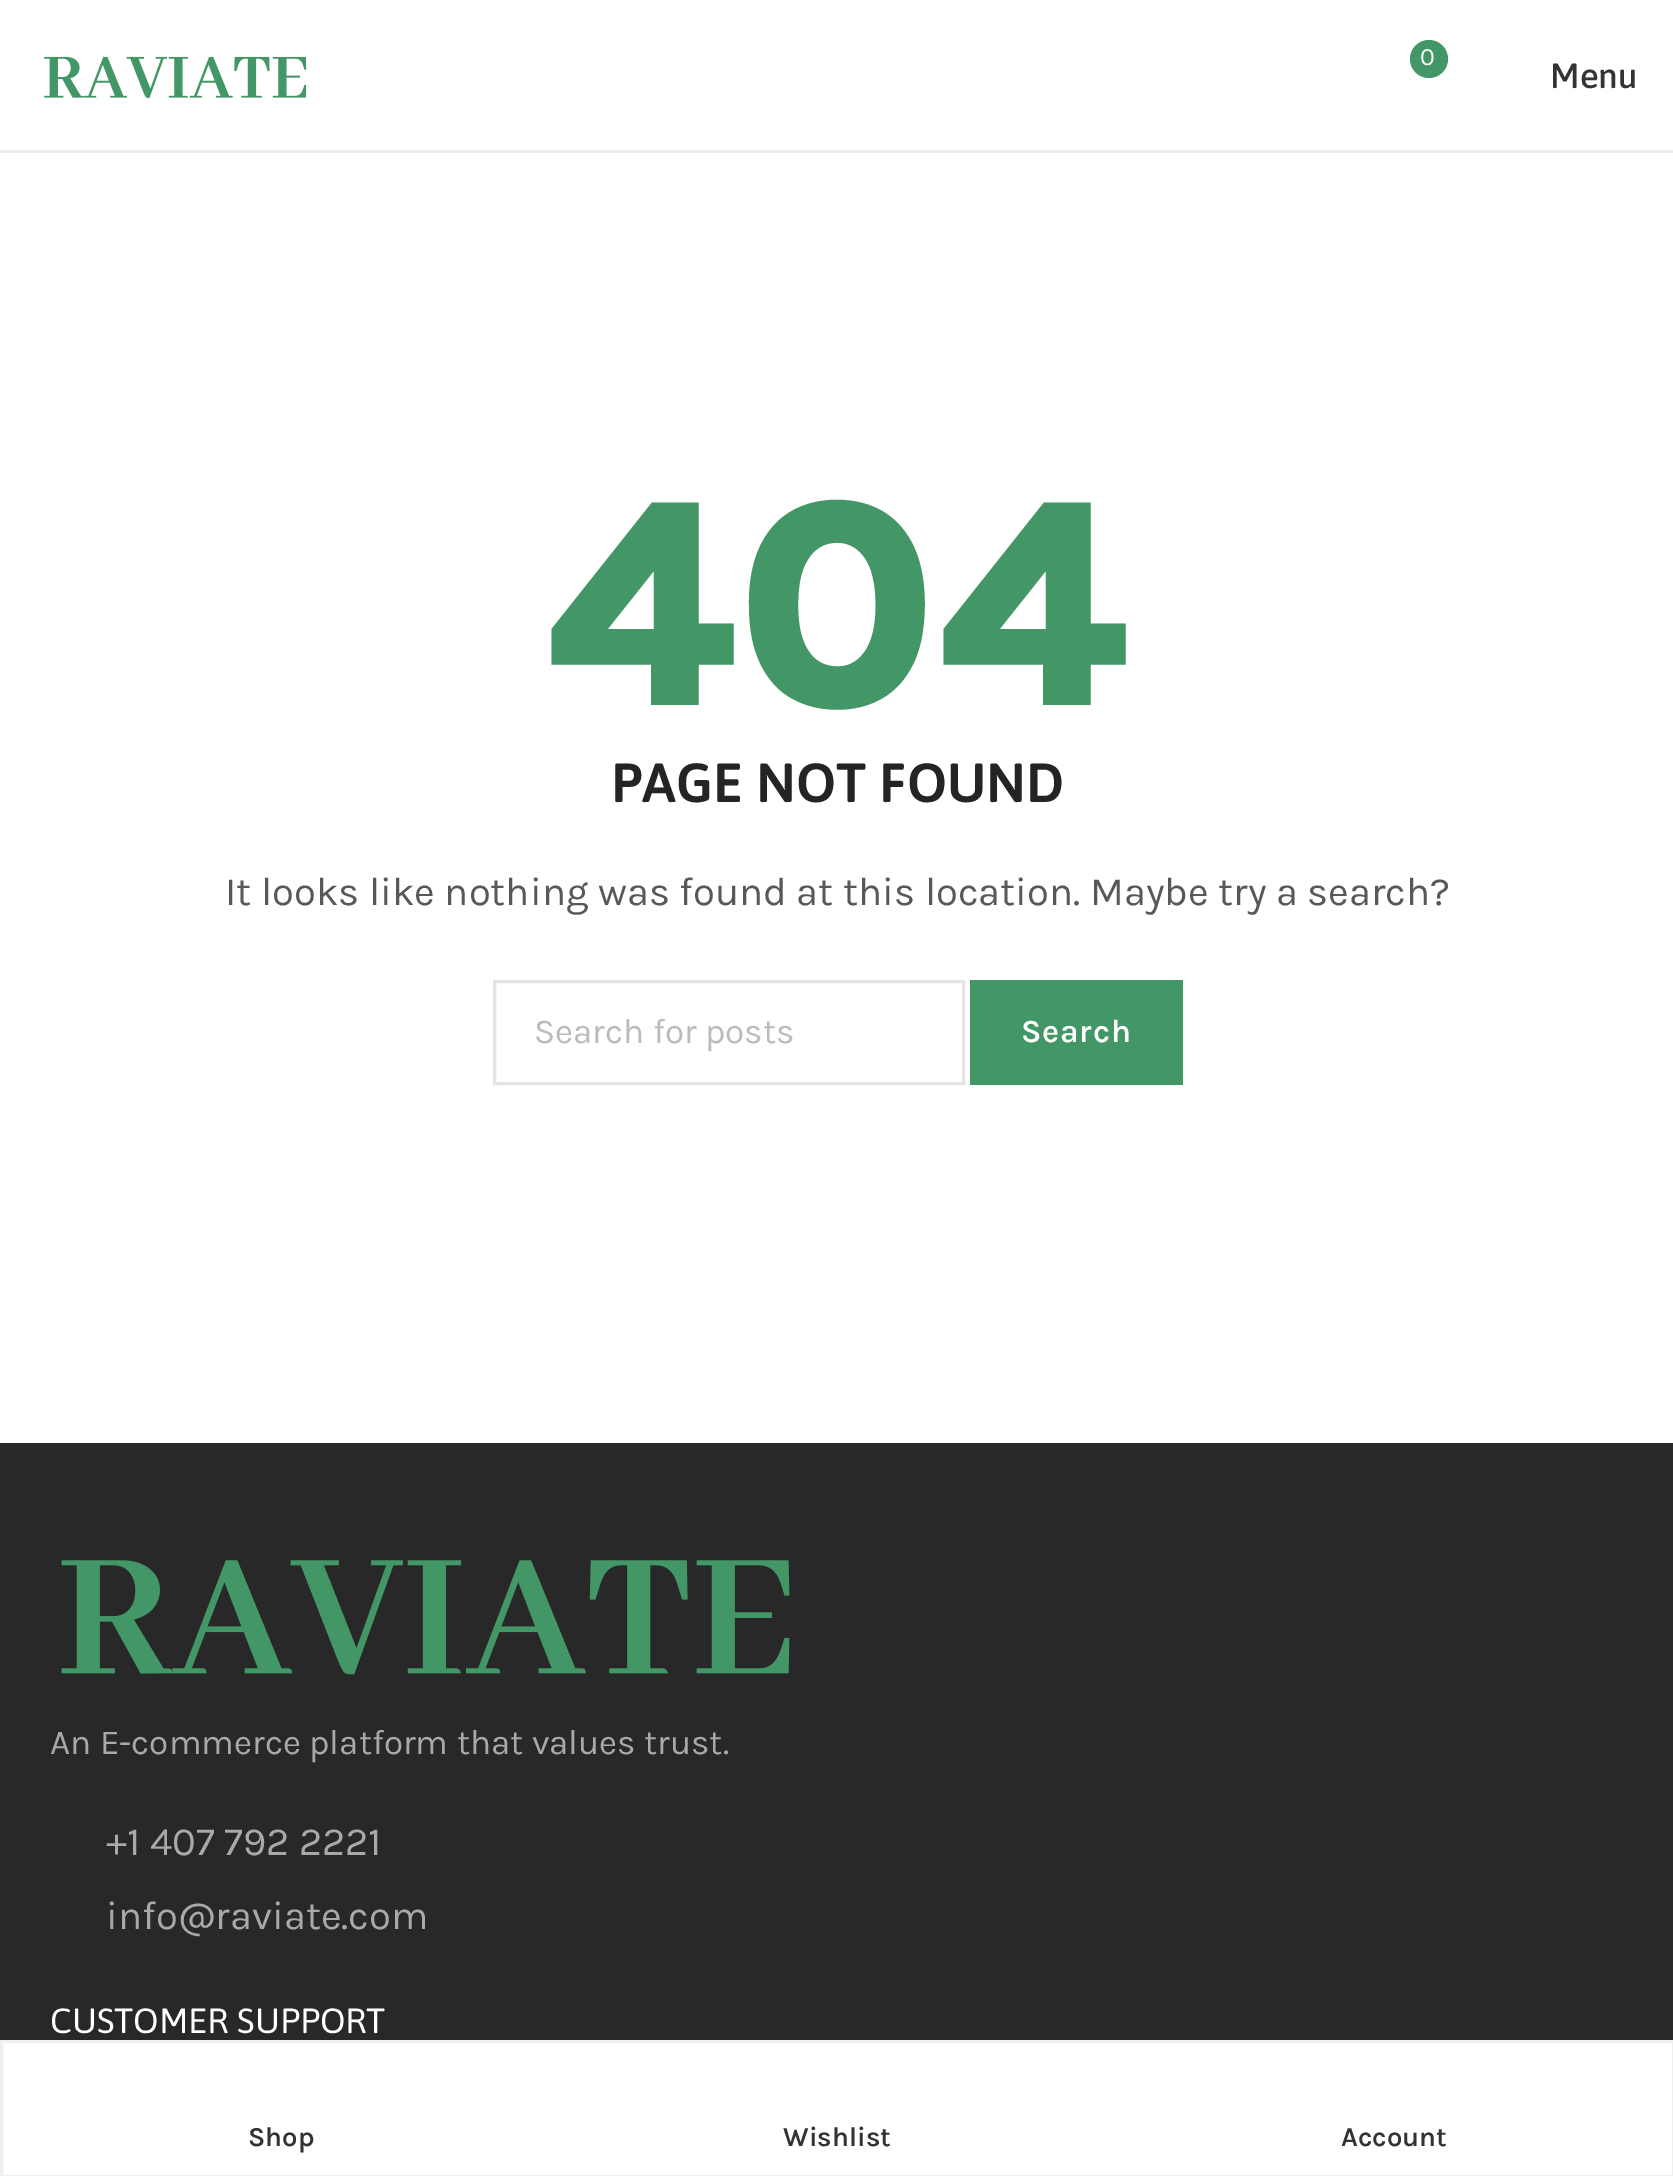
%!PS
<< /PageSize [1673 2176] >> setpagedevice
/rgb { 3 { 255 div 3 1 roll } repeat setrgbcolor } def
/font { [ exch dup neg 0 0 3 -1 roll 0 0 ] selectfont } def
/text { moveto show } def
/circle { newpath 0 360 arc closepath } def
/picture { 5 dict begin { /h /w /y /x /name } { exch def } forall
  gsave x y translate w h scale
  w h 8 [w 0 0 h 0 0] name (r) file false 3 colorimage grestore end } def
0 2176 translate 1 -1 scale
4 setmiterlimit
255 255 255 rgb
0 0 1673 2176 rectfill
237 237 237 rgb
0 150 1673 3 rectfill
(img_01.rgb) 44 56 263 42 picture
67 150 101 rgb
1429 59 19 circle fill
228 228 228 rgb
3 setlinewidth
494.5 981.5 469 102 rectstroke
67 150 101 rgb
970 980 213 105 rectfill
40 40 40 rgb
0 1443 1673 597 rectfill
(img_02.rgb) 61 1560 729 115 picture
239 239 239 rgb
1.5 2041.5 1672 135 rectstroke
/Karla-Regular 25 font
255 255 255 rgb
(0) 1420 65 text
/Asap-Medium 35 font
51 51 51 rgb
(Menu) 1550 88 text
/Karla-ExtraBold 300 font
67 150 101 rgb
(404) 546 705 text
/Asap-SemiBold 55 font
36 36 36 rgb
(PAGE NOT FOUND) 611 802 text
/Karla-Regular 40 font
88 88 88 rgb
(It looks like nothing was found at this location. Maybe try a search?) 225 905 text
/Karla-Regular 35 font
187 187 187 rgb
(Search for posts) 534 1043 text
/Karla-SemiBold 32.5 font
255 255 255 rgb
1021 1042 moveto 0.75 0 (Search) ashow
/Karla-Regular 35 font
169 169 169 rgb
(An E-commerce platform that values trust.) 50 1754 text
/Karla-Regular 40 font
(+1 407 792 2221) 106 1855 text
(info@raviate.com) 106 1929 text
/Asap-Regular 35 font
255 255 255 rgb
(CUSTOMER SUPPORT) 50 2033 text
/Karla-SemiBold 27.5 font
51 51 51 rgb
(Shop) 248 2146 text
(Wishlist) 783 2146 text
(Account) 1341 2146 text
showpage
